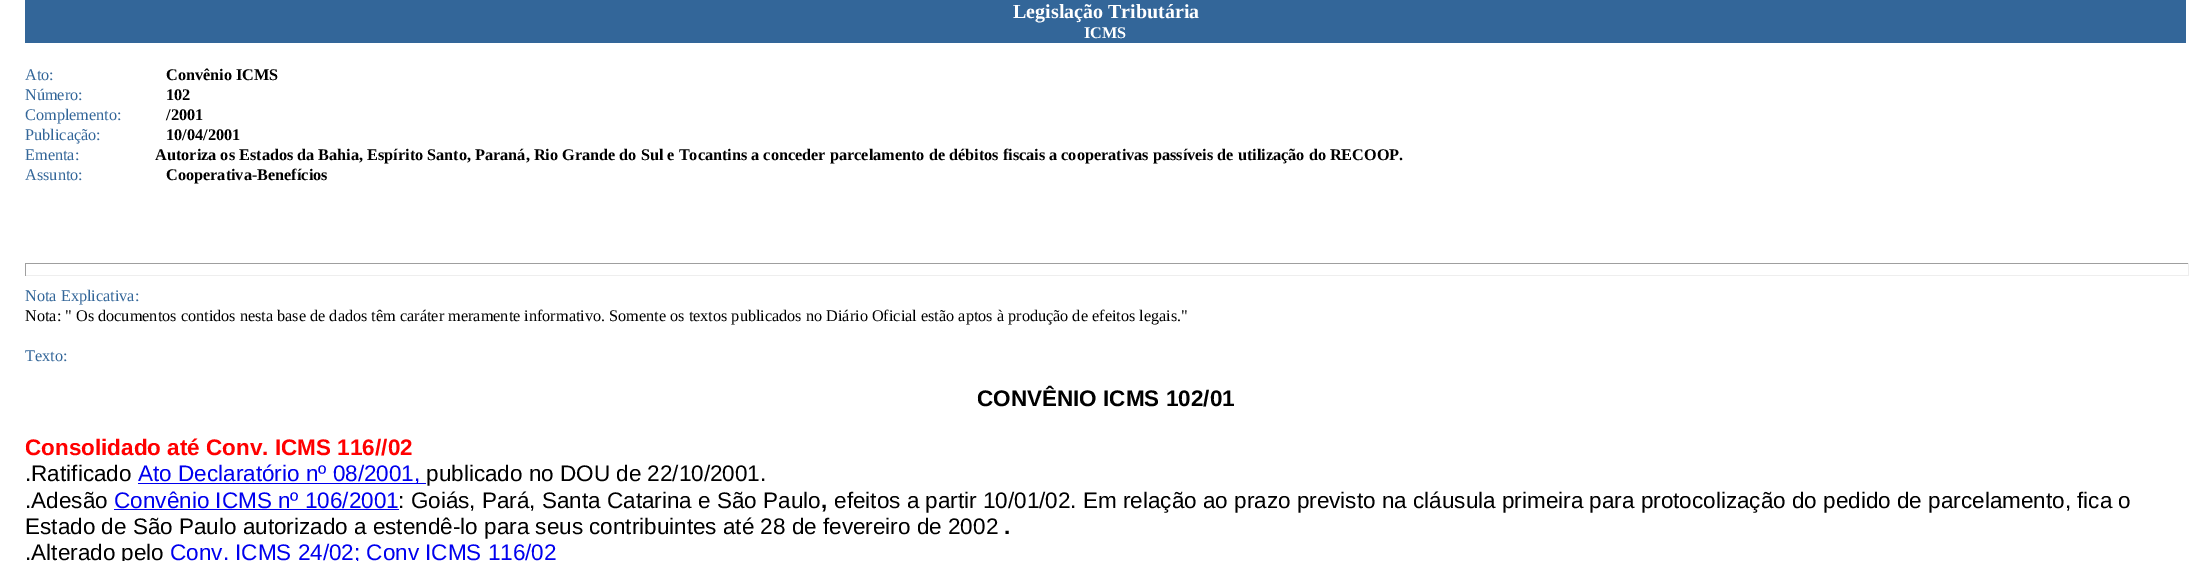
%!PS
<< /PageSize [2211 561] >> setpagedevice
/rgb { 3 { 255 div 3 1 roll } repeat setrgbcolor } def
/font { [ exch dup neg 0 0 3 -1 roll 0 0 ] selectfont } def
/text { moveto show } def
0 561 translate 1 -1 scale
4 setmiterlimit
255 255 255 rgb
0 0 2211 561 rectfill
51 102 153 rgb
25 0 2161 43 rectfill
159 159 159 rgb
25 263 2164 1 rectfill
238 238 238 rgb
2188 263 1 13 rectfill
25 275 2164 1 rectfill
159 159 159 rgb
25 263 1 13 rectfill
0 0 238 rgb
138 483 288 1 rectfill
114 509 285 1 rectfill
/LiberationSerif-Bold 20 font
255 255 255 rgb
(Legislação Tributária) 1013 18 text
/LiberationSerif-Bold 16.25 font
(ICMS) 1084 38 text
/LiberationSerif-Regular 16.25 font
51 102 153 rgb
(Ato:) 25 80 text
/LiberationSerif-Bold 16.25 font
0 0 0 rgb
(Convênio ICMS) 166 80 text
/LiberationSerif-Regular 16.25 font
51 102 153 rgb
(Número:) 25 100 text
/LiberationSerif-Bold 16.25 font
0 0 0 rgb
(102) 166 100 text
/LiberationSerif-Regular 16.25 font
51 102 153 rgb
(Complemento:) 25 120 text
/LiberationSerif-Bold 16.25 font
0 0 0 rgb
(/2001) 166 120 text
/LiberationSerif-Regular 16.25 font
51 102 153 rgb
(Publicação:) 25 140 text
/LiberationSerif-Bold 16.25 font
0 0 0 rgb
(10/04/2001) 166 140 text
/LiberationSerif-Regular 16.25 font
51 102 153 rgb
(Ementa:) 25 160 text
/LiberationSerif-Bold 16.25 font
0 0 0 rgb
(Autoriza os Estados da Bahia, Espírito Santo, Paraná, Rio Grande do Sul e Tocantins a conceder parcelamento de débitos fiscais a cooperativas passíveis de utilização do RECOOP.) 155 160 text
/LiberationSerif-Regular 16.25 font
51 102 153 rgb
(Assunto:) 25 180 text
/LiberationSerif-Bold 16.25 font
0 0 0 rgb
(Cooperativa-Benefícios) 166 180 text
/LiberationSerif-Regular 16.25 font
51 102 153 rgb
(Nota Explicativa:) 25 301 text
0 0 0 rgb
(Nota: " Os documentos contidos nesta base de dados têm caráter meramente informativo. Somente os textos publicados no Diário Oficial estão aptos à produção de efeitos legais.") 25 321 text
51 102 153 rgb
(Texto:) 25 361 text
/LiberationSans-Bold 22.5 font
0 0 0 rgb
(CONVÊNIO ICMS 102/01) 977 406 text
255 0 0 rgb
(Consolidado até Conv. ICMS 116//02) 25 455 text
/LiberationSans-Regular 22.5 font
0 0 0 rgb
(.Ratificado) 25 481 text
0 0 238 rgb
(Ato Declaratório nº 08/2001,) 138 481 text
0 0 0 rgb
(publicado no DOU de 22/10/2001.) 426 481 text
(.Adesão) 25 508 text
0 0 238 rgb
(Convênio ICMS nº 106/2001) 114 508 text
0 0 0 rgb
(: Goiás, Pará, Santa Catarina e São Paulo) 398 508 text
/LiberationSans-Bold 22.5 font
(,) 821 508 text
/LiberationSans-Regular 22.5 font
(efeitos a partir 10/01/02. Em relação ao prazo previsto na cláusula primeira para protocolização do pedido de parcelamento, fica o) 834 508 text
(Estado de São Paulo autorizado a estendê-lo para seus contribuintes até 28 de fevereiro de 2002) 25 534 text
/LiberationSans-Bold 22.5 font
(.) 1004 534 text
/LiberationSans-Regular 22.5 font
(.Alterado pelo) 25 560 text
0 0 238 rgb
(Conv. ICMS 24/02; Conv ICMS 116/02) 170 560 text
showpage
